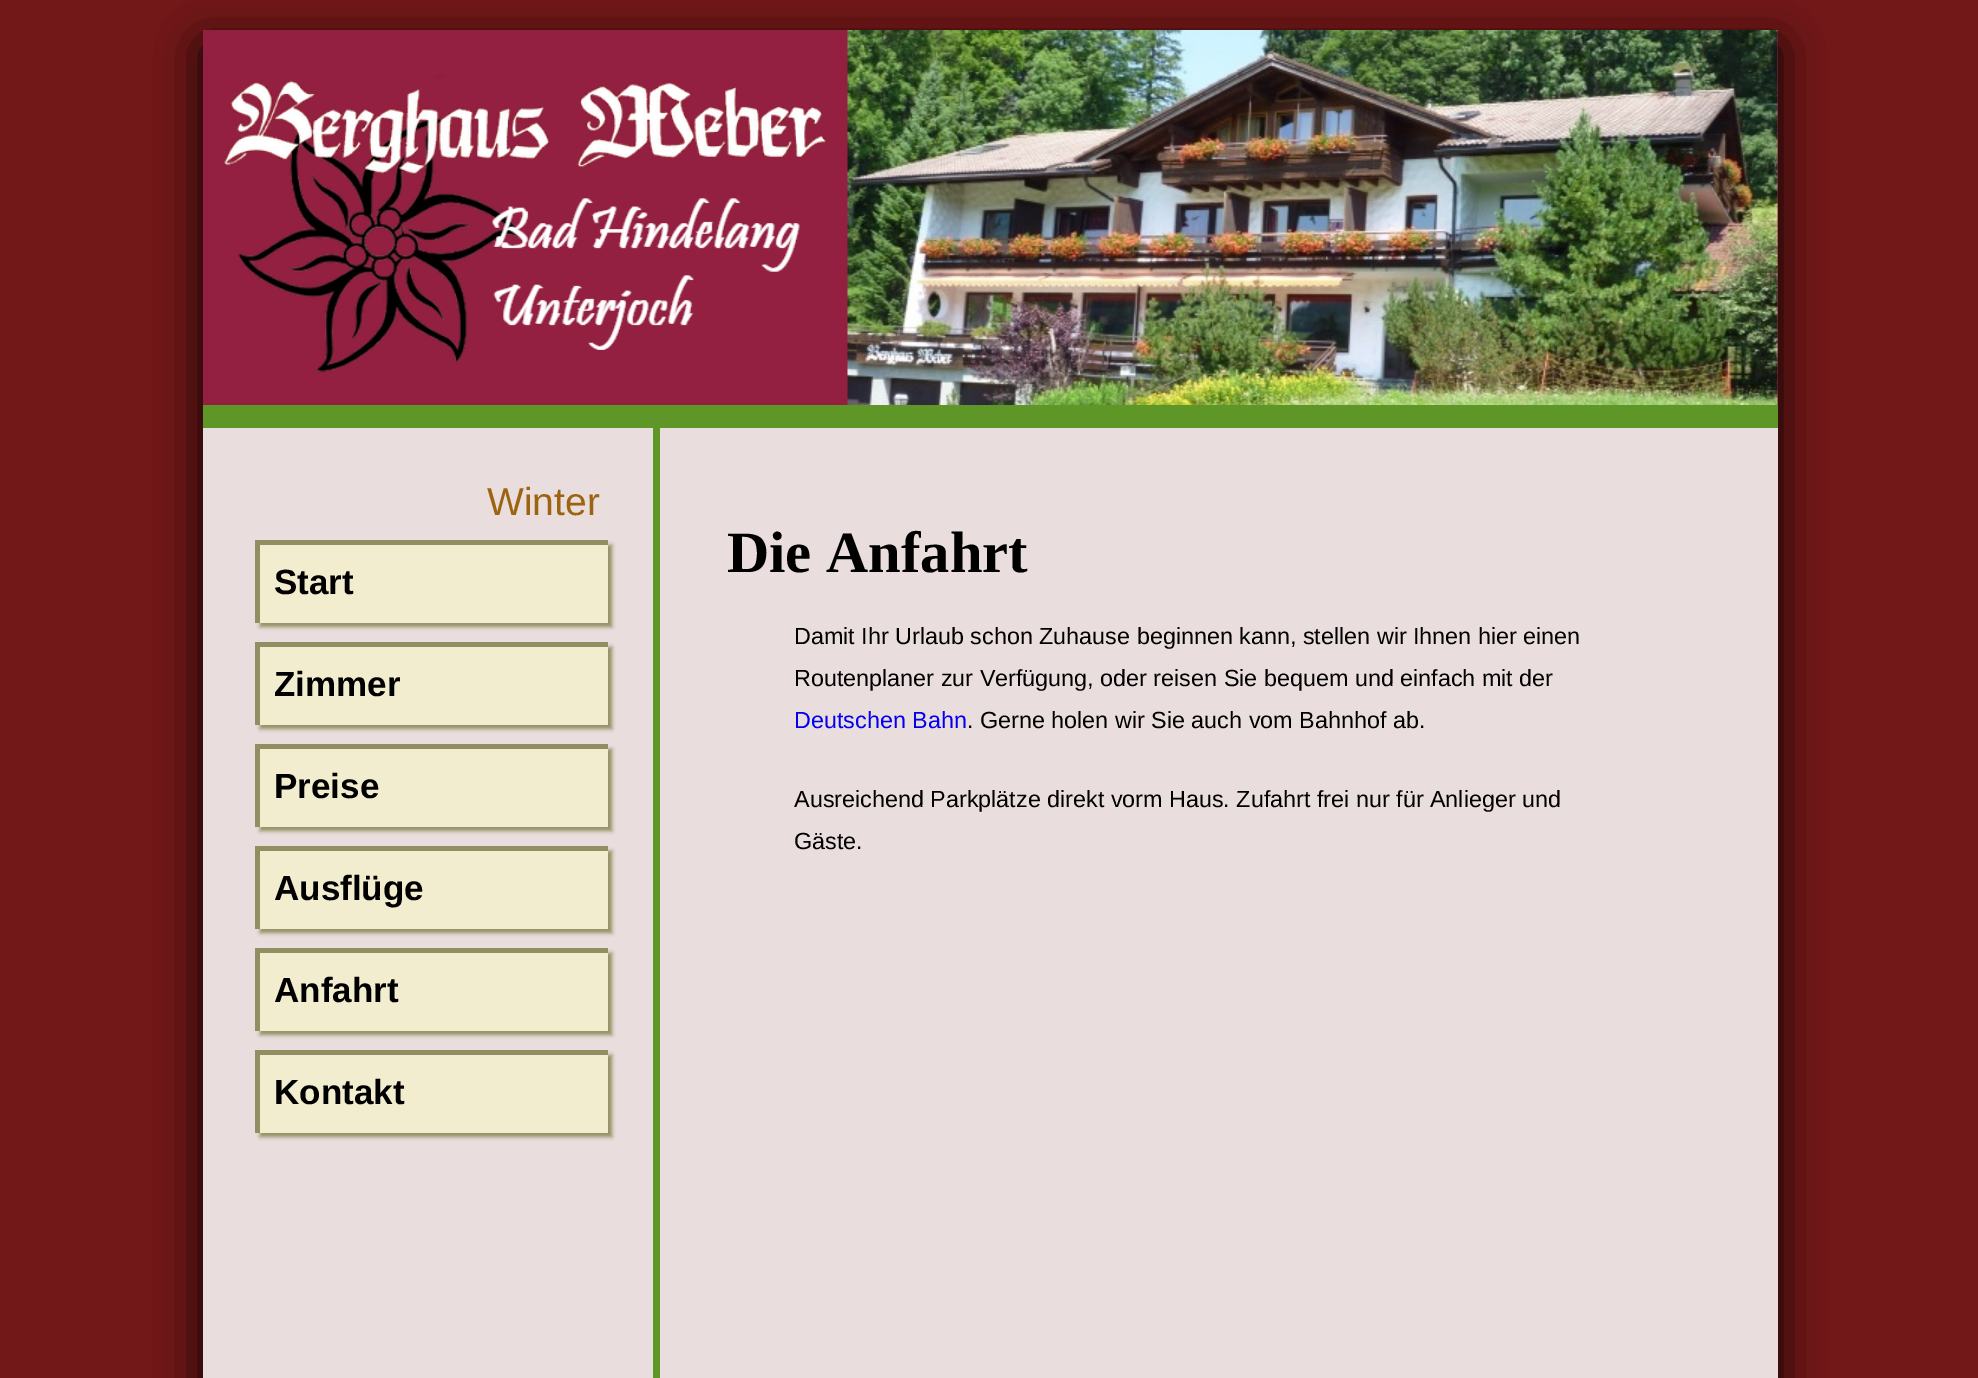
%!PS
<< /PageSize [1978 1378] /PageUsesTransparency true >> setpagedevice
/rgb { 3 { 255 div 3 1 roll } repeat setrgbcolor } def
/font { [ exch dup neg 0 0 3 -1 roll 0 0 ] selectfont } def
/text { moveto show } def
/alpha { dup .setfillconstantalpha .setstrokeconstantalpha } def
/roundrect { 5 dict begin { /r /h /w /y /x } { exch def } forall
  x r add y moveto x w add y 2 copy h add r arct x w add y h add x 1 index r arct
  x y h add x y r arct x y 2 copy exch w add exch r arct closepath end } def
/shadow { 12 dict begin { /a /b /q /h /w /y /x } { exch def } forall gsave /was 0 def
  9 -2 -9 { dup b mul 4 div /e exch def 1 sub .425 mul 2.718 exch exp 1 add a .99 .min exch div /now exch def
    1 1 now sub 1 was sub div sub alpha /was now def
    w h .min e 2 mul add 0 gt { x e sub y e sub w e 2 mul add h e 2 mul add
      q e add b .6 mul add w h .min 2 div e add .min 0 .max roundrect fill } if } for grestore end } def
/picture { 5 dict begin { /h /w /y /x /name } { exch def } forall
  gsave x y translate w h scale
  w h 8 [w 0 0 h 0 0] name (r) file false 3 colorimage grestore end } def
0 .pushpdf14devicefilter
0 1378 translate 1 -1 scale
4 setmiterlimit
115 24 25 rgb
0 0 1978 1378 rectfill
gsave
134 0 moveto 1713 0 rlineto 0 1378 rlineto -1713 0 rlineto closepath 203 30 moveto 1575 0 rlineto 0 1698 rlineto -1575 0 rlineto closepath eoclip newpath
0 0 0 rgb
203 45 1575 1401 0 22.5 1 shadow
grestore
0.85 alpha
255 255 255 rgb
203 428 1575 950 rectfill
1 alpha
147 32 64 rgb
203 30 1575 375 rectfill
(img_01.rgb) 223 75 603 298 picture
(img_02.rgb) 847 30 931 375 picture
94 151 40 rgb
203 405 1575 23 rectfill
653 428 7 950 rectfill
145 142 97 rgb
260 545 352 82 0 2 1 shadow
242 237 207 rgb
260 545 348 78 rectfill
145 142 97 rgb
255 540 353 5 rectfill
255 540 5 83 rectfill
260 647 352 82 0 2 1 shadow
242 237 207 rgb
260 647 348 78 rectfill
145 142 97 rgb
255 642 353 5 rectfill
255 642 5 83 rectfill
260 749 352 82 0 2 1 shadow
242 237 207 rgb
260 749 348 78 rectfill
145 142 97 rgb
255 744 353 5 rectfill
255 744 5 83 rectfill
260 851 352 82 0 2 1 shadow
242 237 207 rgb
260 851 348 78 rectfill
145 142 97 rgb
255 846 353 5 rectfill
255 846 5 83 rectfill
260 953 352 82 0 2 1 shadow
242 237 207 rgb
260 953 348 78 rectfill
145 142 97 rgb
255 948 353 5 rectfill
255 948 5 83 rectfill
260 1055 352 82 0 2 1 shadow
242 237 207 rgb
260 1055 348 78 rectfill
145 142 97 rgb
255 1050 353 5 rectfill
255 1050 5 83 rectfill
/LiberationSans-Regular 39 font
156 99 16 rgb
(Winter) 487 515 text
/LiberationSans-Bold 35 font
0 0 0 rgb
(Start) 274 594 text
(Zimmer) 274 696 text
(Preise) 274 798 text
(Ausflüge) 274 900 text
(Anfahrt) 274 1002 text
(Kontakt) 274 1104 text
/LiberationSerif-Bold 58.5 font
(Die Anfahrt) 727 572 text
/LiberationSans-Regular 23.35 font
(Damit Ihr Urlaub schon Zuhause beginnen kann, stellen wir Ihnen hier einen) 794 644 text
(Routenplaner zur Verfügung, oder reisen Sie bequem und einfach mit der) 794 686 text
0 0 238 rgb
(Deutschen Bahn) 794 728 text
0 0 0 rgb
(. Gerne holen wir Sie auch vom Bahnhof ab.) 967 728 text
(Ausreichend Parkplätze direkt vorm Haus. Zufahrt frei nur für Anlieger und) 794 807 text
(Gäste.) 794 849 text
.poppdf14devicefilter showpage
